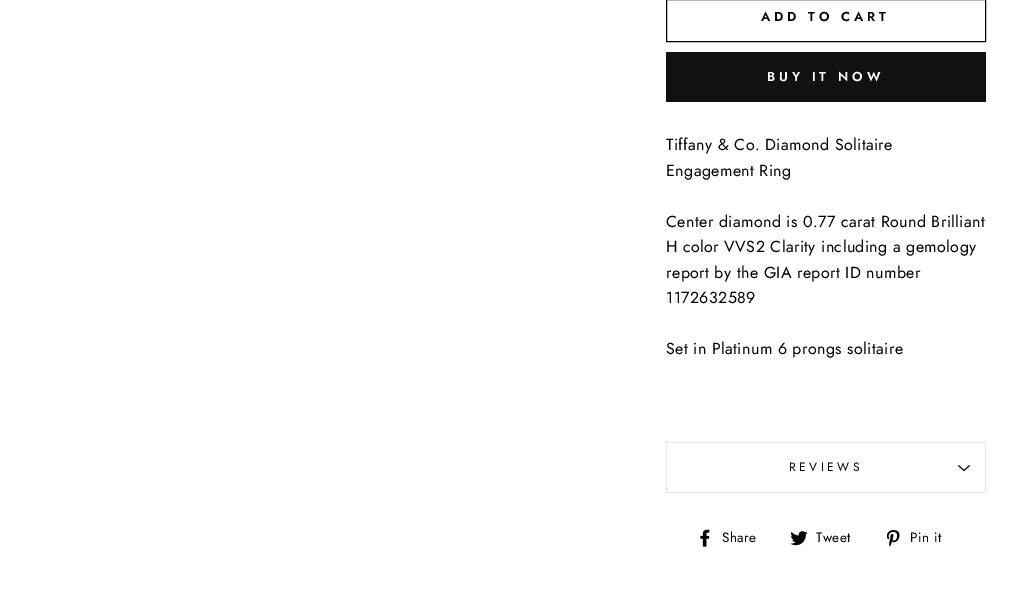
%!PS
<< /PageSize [1026 612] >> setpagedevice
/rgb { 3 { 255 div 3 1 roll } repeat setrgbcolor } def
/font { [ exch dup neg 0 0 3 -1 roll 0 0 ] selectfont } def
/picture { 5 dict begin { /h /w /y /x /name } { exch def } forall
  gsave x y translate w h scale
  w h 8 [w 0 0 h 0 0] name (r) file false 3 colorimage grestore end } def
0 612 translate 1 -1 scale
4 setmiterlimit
255 255 255 rgb
0 0 1026 612 rectfill
0 0 0 rgb
666.5 -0.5 319 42 rectstroke
17 17 17 rgb
666 52 320 50 rectfill
232 232 225 rgb
666 492 320 1 rectfill
666 442 320 1 rectfill
985 442 1 50 rectfill
666 442 1 50 rectfill
0 0 0 rgb
0.9 setlinewidth
958.5 465.5 moveto 5.5 5 rlineto 5.5 -5 rlineto stroke
(img_01.rgb) 700 529 10 18 picture
(img_02.rgb) 790 531 18 15 picture
(img_03.rgb) 886 530 14 17 picture
/Jost-SemiBold 13 font
761 21 moveto 3.9 0 (ADD TO CART) ashow
255 255 255 rgb
767 81 moveto 3.9 0 (BUY IT NOW) ashow
/Jost-Regular 16 font
0 0 0 rgb
666 150 moveto 0.4 0 (Tiffany & Co. Diamond Solitaire) ashow
666 176 moveto 0.4 0 (Engagement Ring) ashow
666 227 moveto 0.4 0 (Center diamond is 0.77 carat Round Brilliant) ashow
666 252 moveto 0.4 0 (H color VVS2 Clarity including a gemology) ashow
666 278 moveto 0.4 0 (report by the GIA report ID number) ashow
666 303 moveto 0.4 0 (1172632589) ashow
666 354 moveto 0.4 0 (Set in Platinum 6 prongs solitaire) ashow
/Jost-Regular 12 font
789 471 moveto 3.5 0 (REVIEWS) ashow
/Jost-Regular 13.5 font
722 542 moveto 0.4 0 (Share) ashow
816 542 moveto 0.4 0 (Tweet) ashow
910 542 moveto 0.4 0 (Pin it) ashow
showpage
